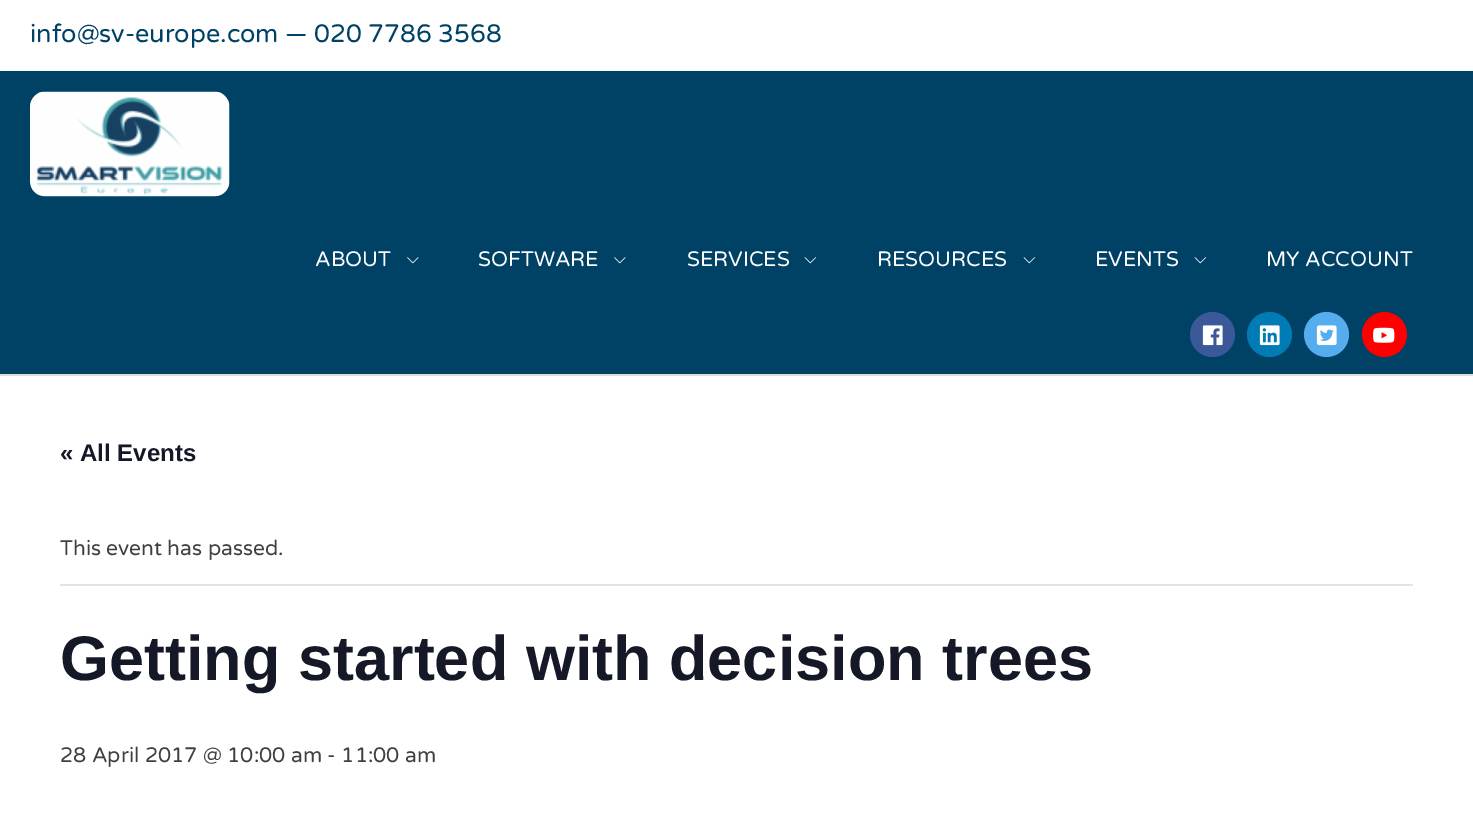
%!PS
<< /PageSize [1473 835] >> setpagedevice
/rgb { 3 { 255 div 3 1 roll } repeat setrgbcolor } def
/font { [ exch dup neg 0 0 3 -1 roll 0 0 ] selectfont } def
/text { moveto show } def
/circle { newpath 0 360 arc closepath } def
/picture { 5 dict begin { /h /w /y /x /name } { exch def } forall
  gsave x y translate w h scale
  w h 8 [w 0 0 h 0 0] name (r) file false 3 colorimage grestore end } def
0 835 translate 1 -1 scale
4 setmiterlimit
255 255 255 rgb
0 0 1473 835 rectfill
0 65 102 rgb
0 71 1473 303 rectfill
221 221 221 rgb
0 374 1473 2 rectfill
(img_01.rgb) 30 91 200 106 picture
(img_02.rgb) 407 257 12 7 picture
(img_02.rgb) 614 257 12 7 picture
(img_03.rgb) 804 257 12 7 picture
(img_03.rgb) 1023 257 12 7 picture
(img_03.rgb) 1194 257 12 7 picture
59 89 152 rgb
1212.5 334.5 22.5 circle fill
(img_04.rgb) 1202 325 21 21 picture
0 123 181 rgb
1269.5 334.5 22.5 circle fill
(img_05.rgb) 1259 325 21 21 picture
85 172 238 rgb
1326.5 334.5 22.5 circle fill
(img_06.rgb) 1316 325 21 21 picture
255 0 0 rgb
1384.5 334.5 22.5 circle fill
(img_07.rgb) 1373 327 22 16 picture
228 228 228 rgb
60 584 1353 2 rectfill
/VarelaRound-Regular 25.25 font
0 65 102 rgb
(info@sv-europe.com — 020 7786 3568) 30 42 text
/VarelaRound-Regular 21 font
255 255 255 rgb
(ABOUT) 315 266 text
(SOFTWARE) 478 266 text
(SERVICES) 687 266 text
(RESOURCES) 877 266 text
(EVENTS) 1095 266 text
(MY ACCOUNT) 1266 266 text
/LiberationSans-Bold 24 font
20 24 39 rgb
(« All Events) 60 461 text
/VarelaRound-Regular 21 font
64 64 64 rgb
(This event has passed.) 60 555 text
/LiberationSans-Bold 63 font
20 24 39 rgb
(Getting started with decision trees) 60 680 text
/VarelaRound-Regular 21 font
64 64 64 rgb
(28 April 2017 @ 10:00 am - 11:00 am) 60 762 text
showpage
